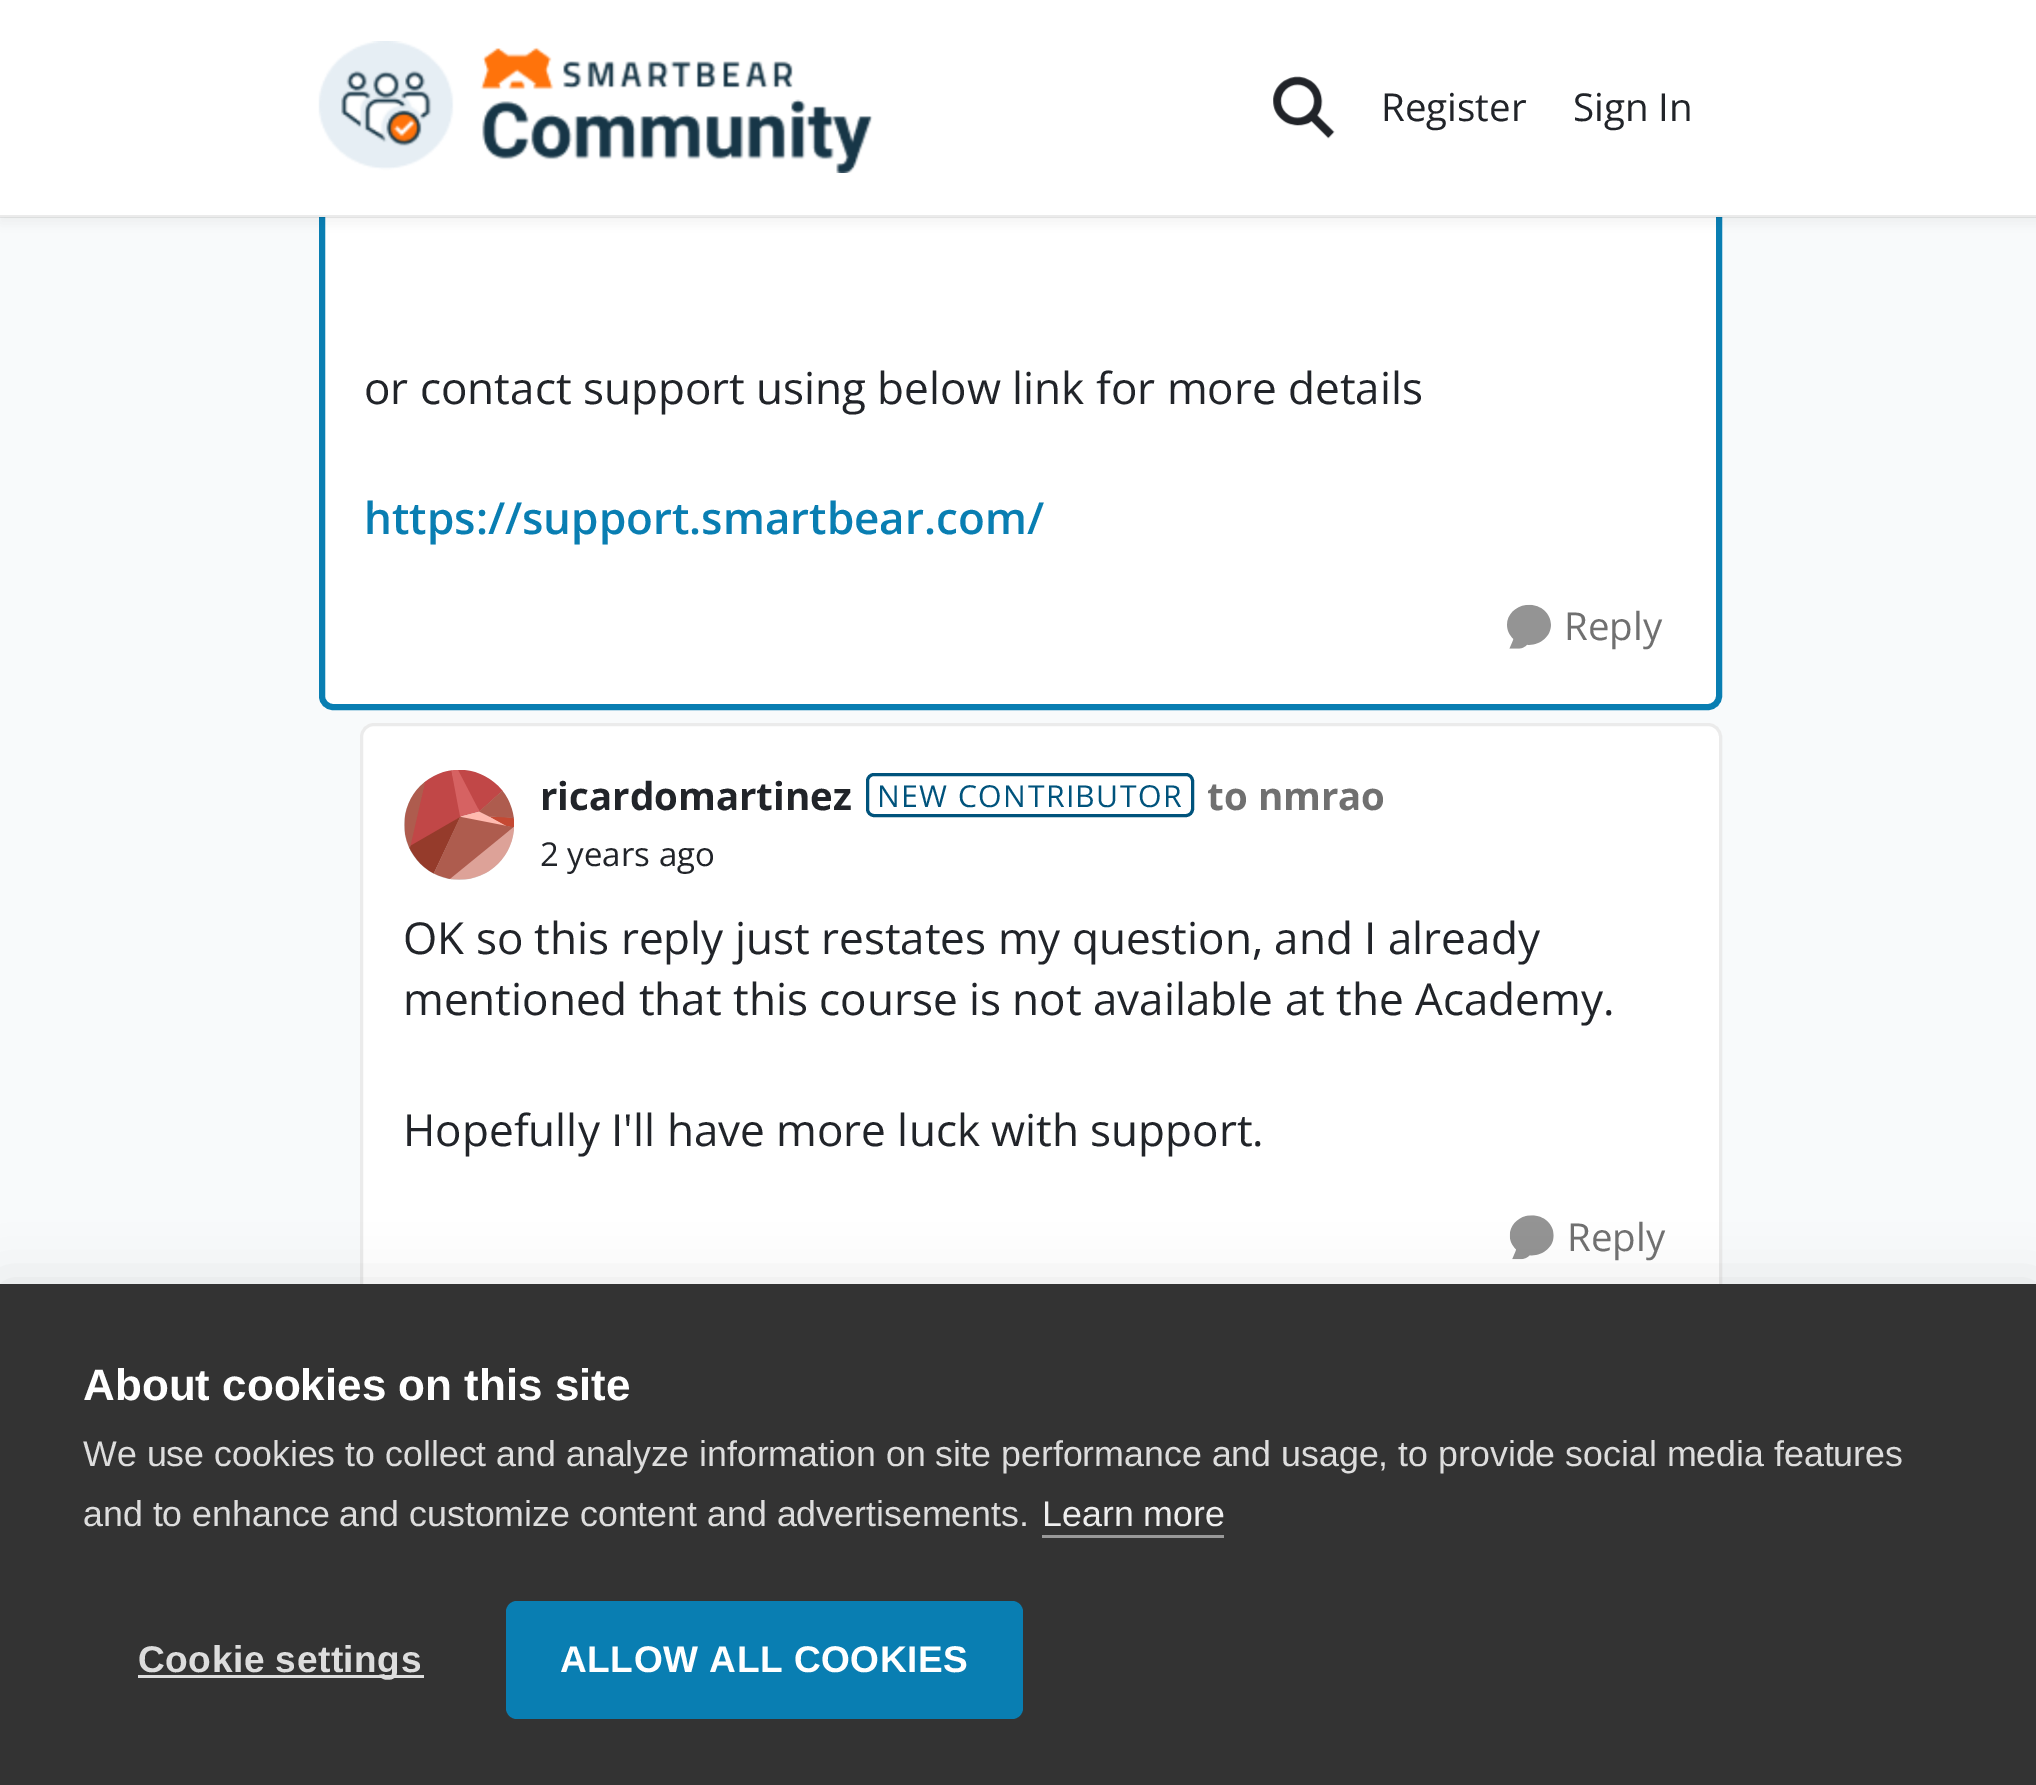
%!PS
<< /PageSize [2036 1785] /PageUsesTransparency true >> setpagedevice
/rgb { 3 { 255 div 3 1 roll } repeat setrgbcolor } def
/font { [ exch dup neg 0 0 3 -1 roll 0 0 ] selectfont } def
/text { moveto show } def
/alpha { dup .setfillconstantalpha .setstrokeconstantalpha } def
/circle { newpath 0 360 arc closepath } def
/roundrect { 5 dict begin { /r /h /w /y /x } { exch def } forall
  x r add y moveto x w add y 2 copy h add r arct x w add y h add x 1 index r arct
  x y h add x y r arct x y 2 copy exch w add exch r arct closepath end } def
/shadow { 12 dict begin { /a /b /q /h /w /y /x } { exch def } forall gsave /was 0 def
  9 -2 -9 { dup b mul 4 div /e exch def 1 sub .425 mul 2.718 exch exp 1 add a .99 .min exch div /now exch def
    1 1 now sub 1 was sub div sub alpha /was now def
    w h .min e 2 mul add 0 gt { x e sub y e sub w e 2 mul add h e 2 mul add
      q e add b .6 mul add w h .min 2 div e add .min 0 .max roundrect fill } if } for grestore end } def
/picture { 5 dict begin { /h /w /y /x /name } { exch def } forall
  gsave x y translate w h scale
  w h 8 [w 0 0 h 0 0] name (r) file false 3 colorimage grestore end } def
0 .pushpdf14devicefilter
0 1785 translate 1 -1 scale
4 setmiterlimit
248 250 251 rgb
0 0 2036 1785 rectfill
255 255 255 rgb
322 -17 1397 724 11 roundrect gsave fill grestore
9 126 178 rgb
6 setlinewidth
stroke
51 51 51 rgb
0 6 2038 217 0 5.5 0.06 shadow
255 255 255 rgb
0 0 2036 217 rectfill
0.08 alpha
0 0 0 rgb
0 215 2036 3 rectfill
1 alpha
(img_01.rgb) 318 41 555 132 picture
(img_02.rgb) 1273 76 62 63 picture
(img_03.rgb) 1507 604 44 45 picture
255 255 255 rgb
360 723 1362 597 14 roundrect fill
0.08 alpha
0 0 0 rgb
3 setlinewidth
361.5 724.5 1359 594 12.5 roundrect stroke
1 alpha
217 217 217 rgb
459 825 55 circle fill
(img_04.rgb) 404 770 110 110 picture
0 83 124 rgb
867.5 774.5 325 41 6.5 roundrect stroke
(img_05.rgb) 1509 1215 45 45 picture
0 0 0 rgb
0 1284 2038 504 0 27.5 0.1 shadow
51 51 51 rgb
0 1284 2036 501 rectfill
153 153 153 rgb
1042 1535 182 3 rectfill
221 221 221 rgb
138 1675 286 3 rectfill
9 126 178 rgb
506 1601 517 118 11 roundrect fill
/OpenSans-Regular 38.5 font
33 36 41 rgb
(Register) 1381 121 text
(Sign In) 1573 121 text
/OpenSans-Regular 44 font
(or contact support using below link for more details) 364 404 text
/OpenSans-SemiBold 44 font
9 126 178 rgb
(https://support.smartbear.com/) 364 534 text
/OpenSans-Regular 38.5 font
112 112 112 rgb
(Reply) 1564 640 text
/OpenSans-Bold 38.5 font
33 36 41 rgb
(ricardomartinez) 540 810 text
/OpenSans-Regular 30.25 font
0 83 124 rgb
877 807 moveto 1.4 0 (NEW CONTRIBUTOR) ashow
/OpenSans-Bold 38.5 font
112 112 112 rgb
(to nmrao) 1207 810 text
/OpenSans-Regular 33 font
33 36 41 rgb
(2 years ago) 540 866 text
/OpenSans-Regular 44 font
(OK so this reply just restates my question, and I already) 403 954 text
(mentioned that this course is not available at the Academy.) 403 1015 text
(Hopefully I'll have more luck with support.) 403 1146 text
/OpenSans-Regular 38.5 font
112 112 112 rgb
(Reply) 1567 1251 text
/LiberationSans-Bold 44 font
255 255 255 rgb
(About cookies on this site) 83 1400 text
/LiberationSans-Regular 35.75 font
221 221 221 rgb
(We use cookies to collect and analyze information on site performance and usage, to provide social media features) 83 1466 text
(and to enhance and customize content and advertisements.) 83 1526 text
238 238 238 rgb
(Learn more) 1042 1526 text
/LiberationSans-Bold 37.1 font
221 221 221 rgb
138 1672 moveto 0.5 0 (Cookie settings) ashow
255 255 255 rgb
560 1672 moveto 0.5 0 (ALLOW ALL COOKIES) ashow
.poppdf14devicefilter showpage
